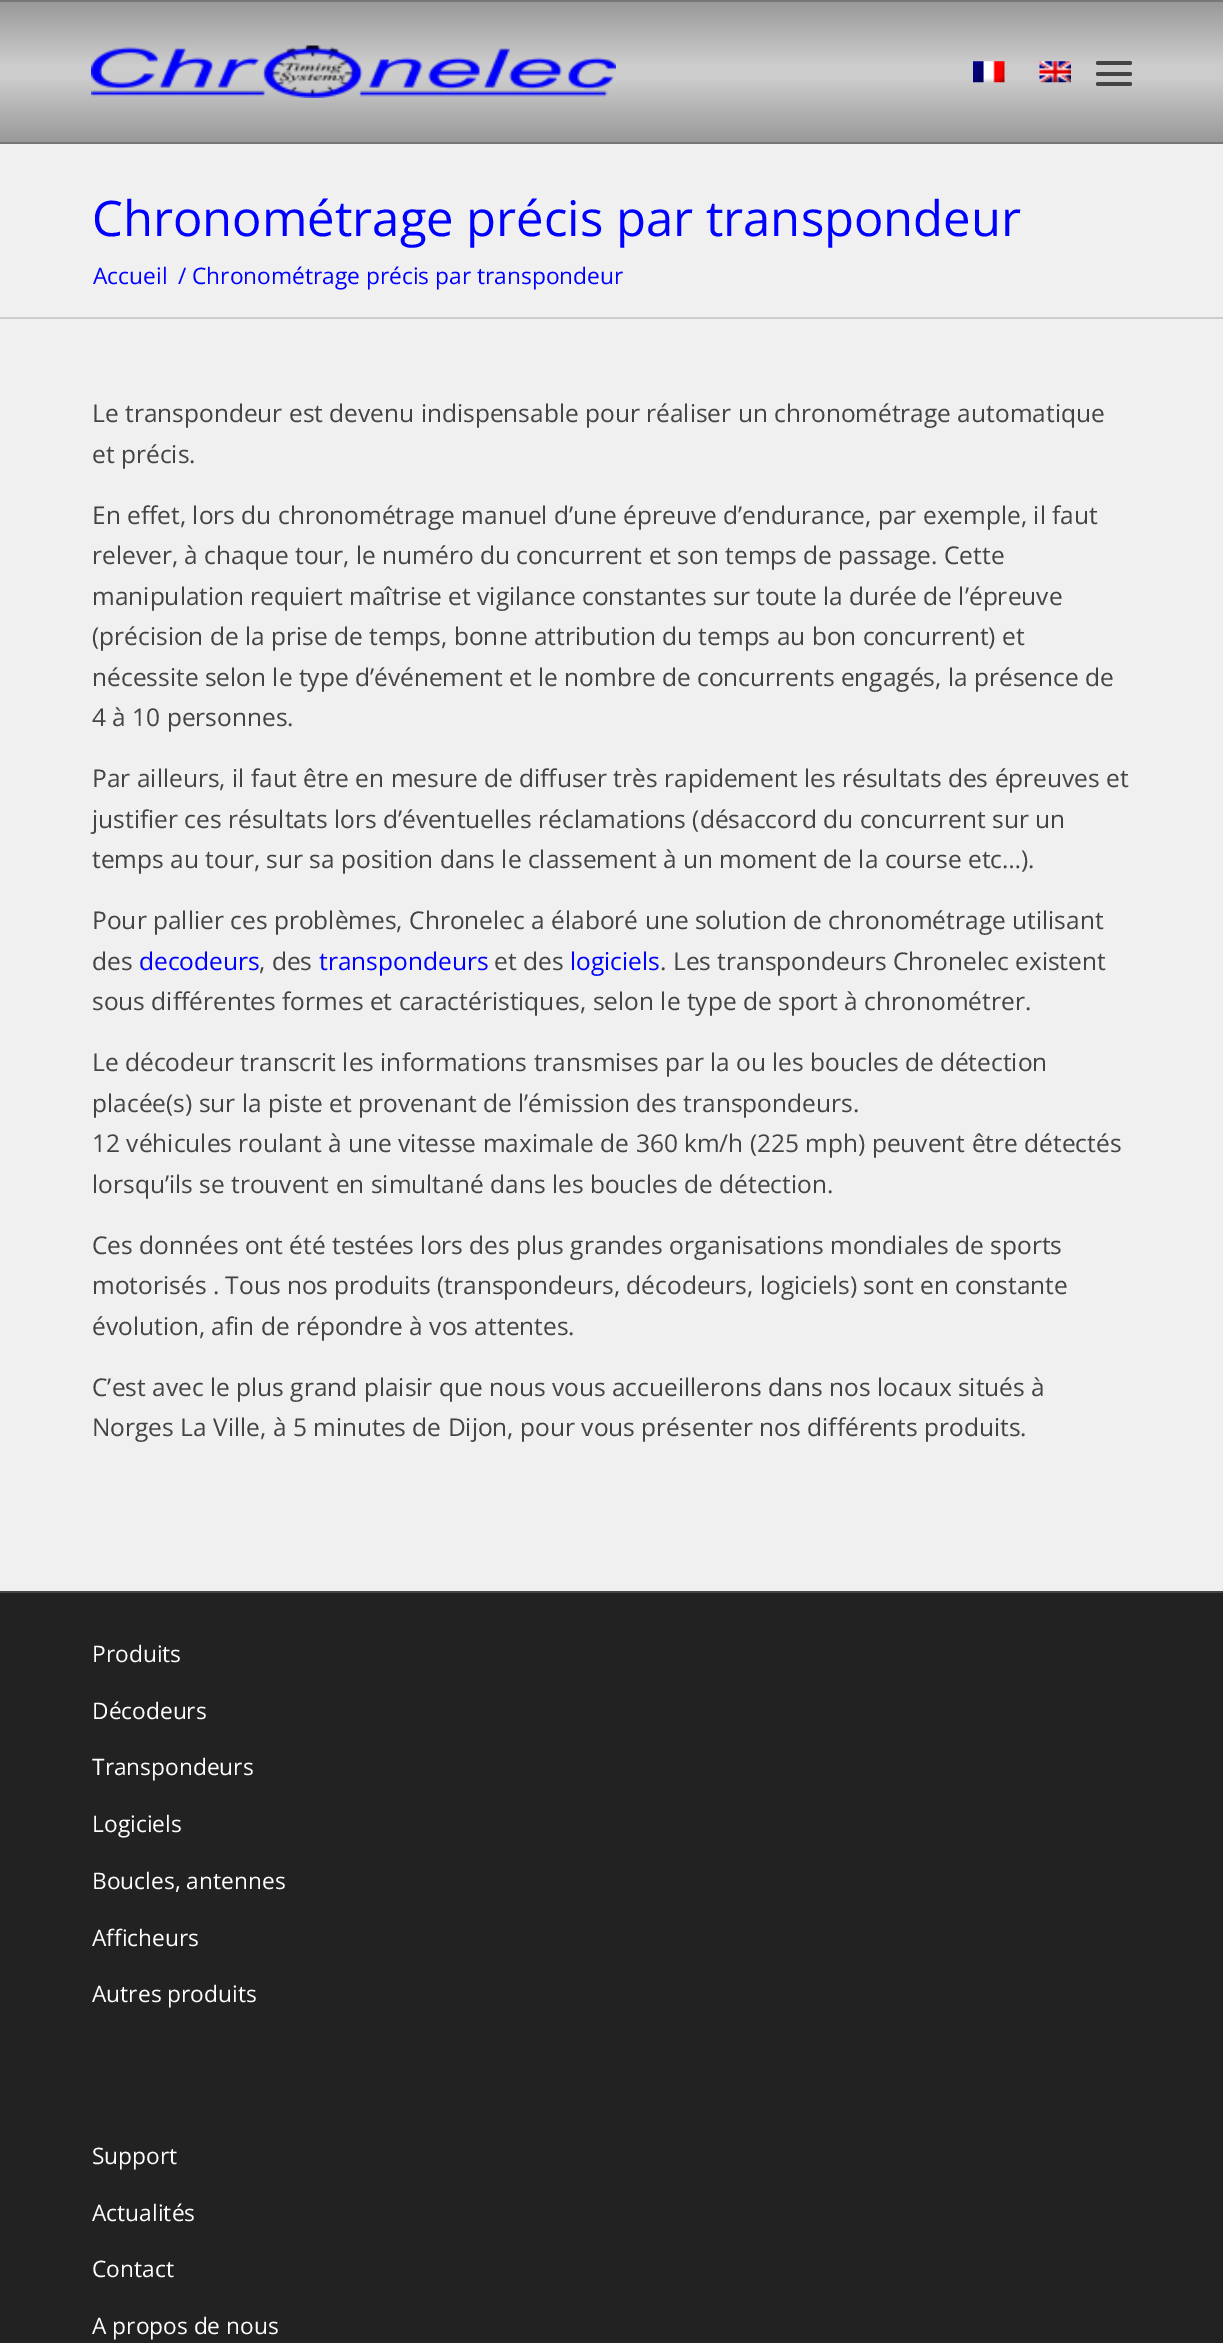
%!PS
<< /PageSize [1223 2343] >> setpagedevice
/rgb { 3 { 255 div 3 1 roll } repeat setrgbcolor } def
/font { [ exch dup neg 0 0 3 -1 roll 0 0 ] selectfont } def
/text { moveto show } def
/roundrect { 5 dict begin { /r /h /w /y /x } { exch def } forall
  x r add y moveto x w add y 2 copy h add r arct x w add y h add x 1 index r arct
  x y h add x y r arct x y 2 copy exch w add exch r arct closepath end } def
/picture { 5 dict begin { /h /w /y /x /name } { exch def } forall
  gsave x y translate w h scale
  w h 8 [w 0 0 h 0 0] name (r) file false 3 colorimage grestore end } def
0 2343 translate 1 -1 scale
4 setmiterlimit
240 240 240 rgb
0 0 1223 2343 rectfill
gsave 0 2 moveto 1223 0 rlineto 0 140 rlineto -1223 0 rlineto closepath clip newpath
<< /ShadingType 2 /ColorSpace /DeviceRGB /Coords [612 1.7 612 142] /Extend [true true] /Function << /FunctionType 3 /Domain [0 1] /Functions [<< /FunctionType 2 /Domain [0 1] /C0 [0.6 0.6 0.6] /C1 [0.8 0.8 0.8] /N 1 >> << /FunctionType 2 /Domain [0 1] /C0 [0.8 0.8 0.8] /C1 [0.8 0.8 0.8] /N 1 >> << /FunctionType 2 /Domain [0 1] /C0 [0.8 0.8 0.8] /C1 [0.6 0.6 0.6] /N 1 >>] /Bounds [0.45 0.55] /Encode [0 1 0 1 0 1] >> >> shfill grestore
119 119 119 rgb
0 0 1223 2 rectfill
0 142 1223 2 rectfill
(img_01.rgb) 91 45 525 53 picture
(img_02.rgb) 973 61 32 22 picture
(img_03.rgb) 1039 61 32 22 picture
68 68 68 rgb
1096 72 36 4 2 roundrect fill
1096 61 36 4 2 roundrect fill
1096 82 36 4 2 roundrect fill
204 204 204 rgb
0 317 1223 2 rectfill
34 34 34 rgb
0 1593 1223 750 rectfill
68 68 68 rgb
0 1591 1223 2 rectfill
/OpenSans-Regular 49 font
0 0 255 rgb
(Chronométrage précis par transpondeur) 92 236 text
/OpenSans-Regular 22.75 font
(Accueil) 93 284 text
(/) 178 284 text
(Chronométrage précis par transpondeur) 192 284 text
/OpenSans-Regular 24.5 font
68 68 68 rgb
(Le transpondeur est devenu indispensable pour réaliser un chronométrage automatique) 92 422 text
(et précis.) 92 463 text
(En effet, lors du chronométrage manuel d’une épreuve d’endurance, par exemple, il faut) 92 524 text
(relever, à chaque tour, le numéro du concurrent et son temps de passage. Cette) 92 564 text
(manipulation requiert maîtrise et vigilance constantes sur toute la durée de l’épreuve) 92 605 text
(\(précision de la prise de temps, bonne attribution du temps au bon concurrent\) et) 92 645 text
(nécessite selon le type d’événement et le nombre de concurrents engagés, la présence de) 92 686 text
(4 à 10 personnes.) 92 726 text
(Par ailleurs, il faut être en mesure de diffuser très rapidement les résultats des épreuves et) 92 787 text
(justifier ces résultats lors d’éventuelles réclamations \(désaccord du concurrent sur un) 92 828 text
(temps au tour, sur sa position dans le classement à un moment de la course etc…\).) 92 868 text
(Pour pallier ces problèmes, Chronelec a élaboré une solution de chronométrage utilisant) 92 929 text
(des) 92 970 text
0 0 255 rgb
(decodeurs) 139 970 text
68 68 68 rgb
(, des) 259 970 text
0 0 255 rgb
(transpondeurs) 319 970 text
68 68 68 rgb
(et des) 494 970 text
0 0 255 rgb
(logiciels) 570 970 text
68 68 68 rgb
(. Les transpondeurs Chronelec existent) 660 970 text
(sous différentes formes et caractéristiques, selon le type de sport à chronométrer.) 92 1010 text
(Le décodeur transcrit les informations transmises par la ou les boucles de détection) 92 1071 text
(placée\(s\) sur la piste et provenant de l’émission des transpondeurs.) 92 1112 text
(12 véhicules roulant à une vitesse maximale de 360 km/h \(225 mph\) peuvent être détectés) 92 1152 text
(lorsqu’ils se trouvent en simultané dans les boucles de détection.) 92 1193 text
(Ces données ont été testées lors des plus grandes organisations mondiales de sports) 92 1254 text
(motorisés . Tous nos produits \(transpondeurs, décodeurs, logiciels\) sont en constante) 92 1294 text
(évolution, afin de répondre à vos attentes.) 92 1335 text
(C’est avec le plus grand plaisir que nous vous accueillerons dans nos locaux situés à) 92 1396 text
(Norges La Ville, à 5 minutes de Dijon, pour vous présenter nos différents produits.) 92 1436 text
/OpenSans-Regular 22.75 font
255 255 255 rgb
(Produits) 92 1662 text
(Décodeurs) 92 1719 text
(Transpondeurs) 92 1775 text
(Logiciels) 92 1832 text
(Boucles, antennes) 92 1889 text
(Afficheurs) 92 1946 text
(Autres produits) 92 2002 text
(Support) 92 2164 text
(Actualités) 92 2221 text
(Contact) 92 2277 text
(A propos de nous) 92 2334 text
showpage
